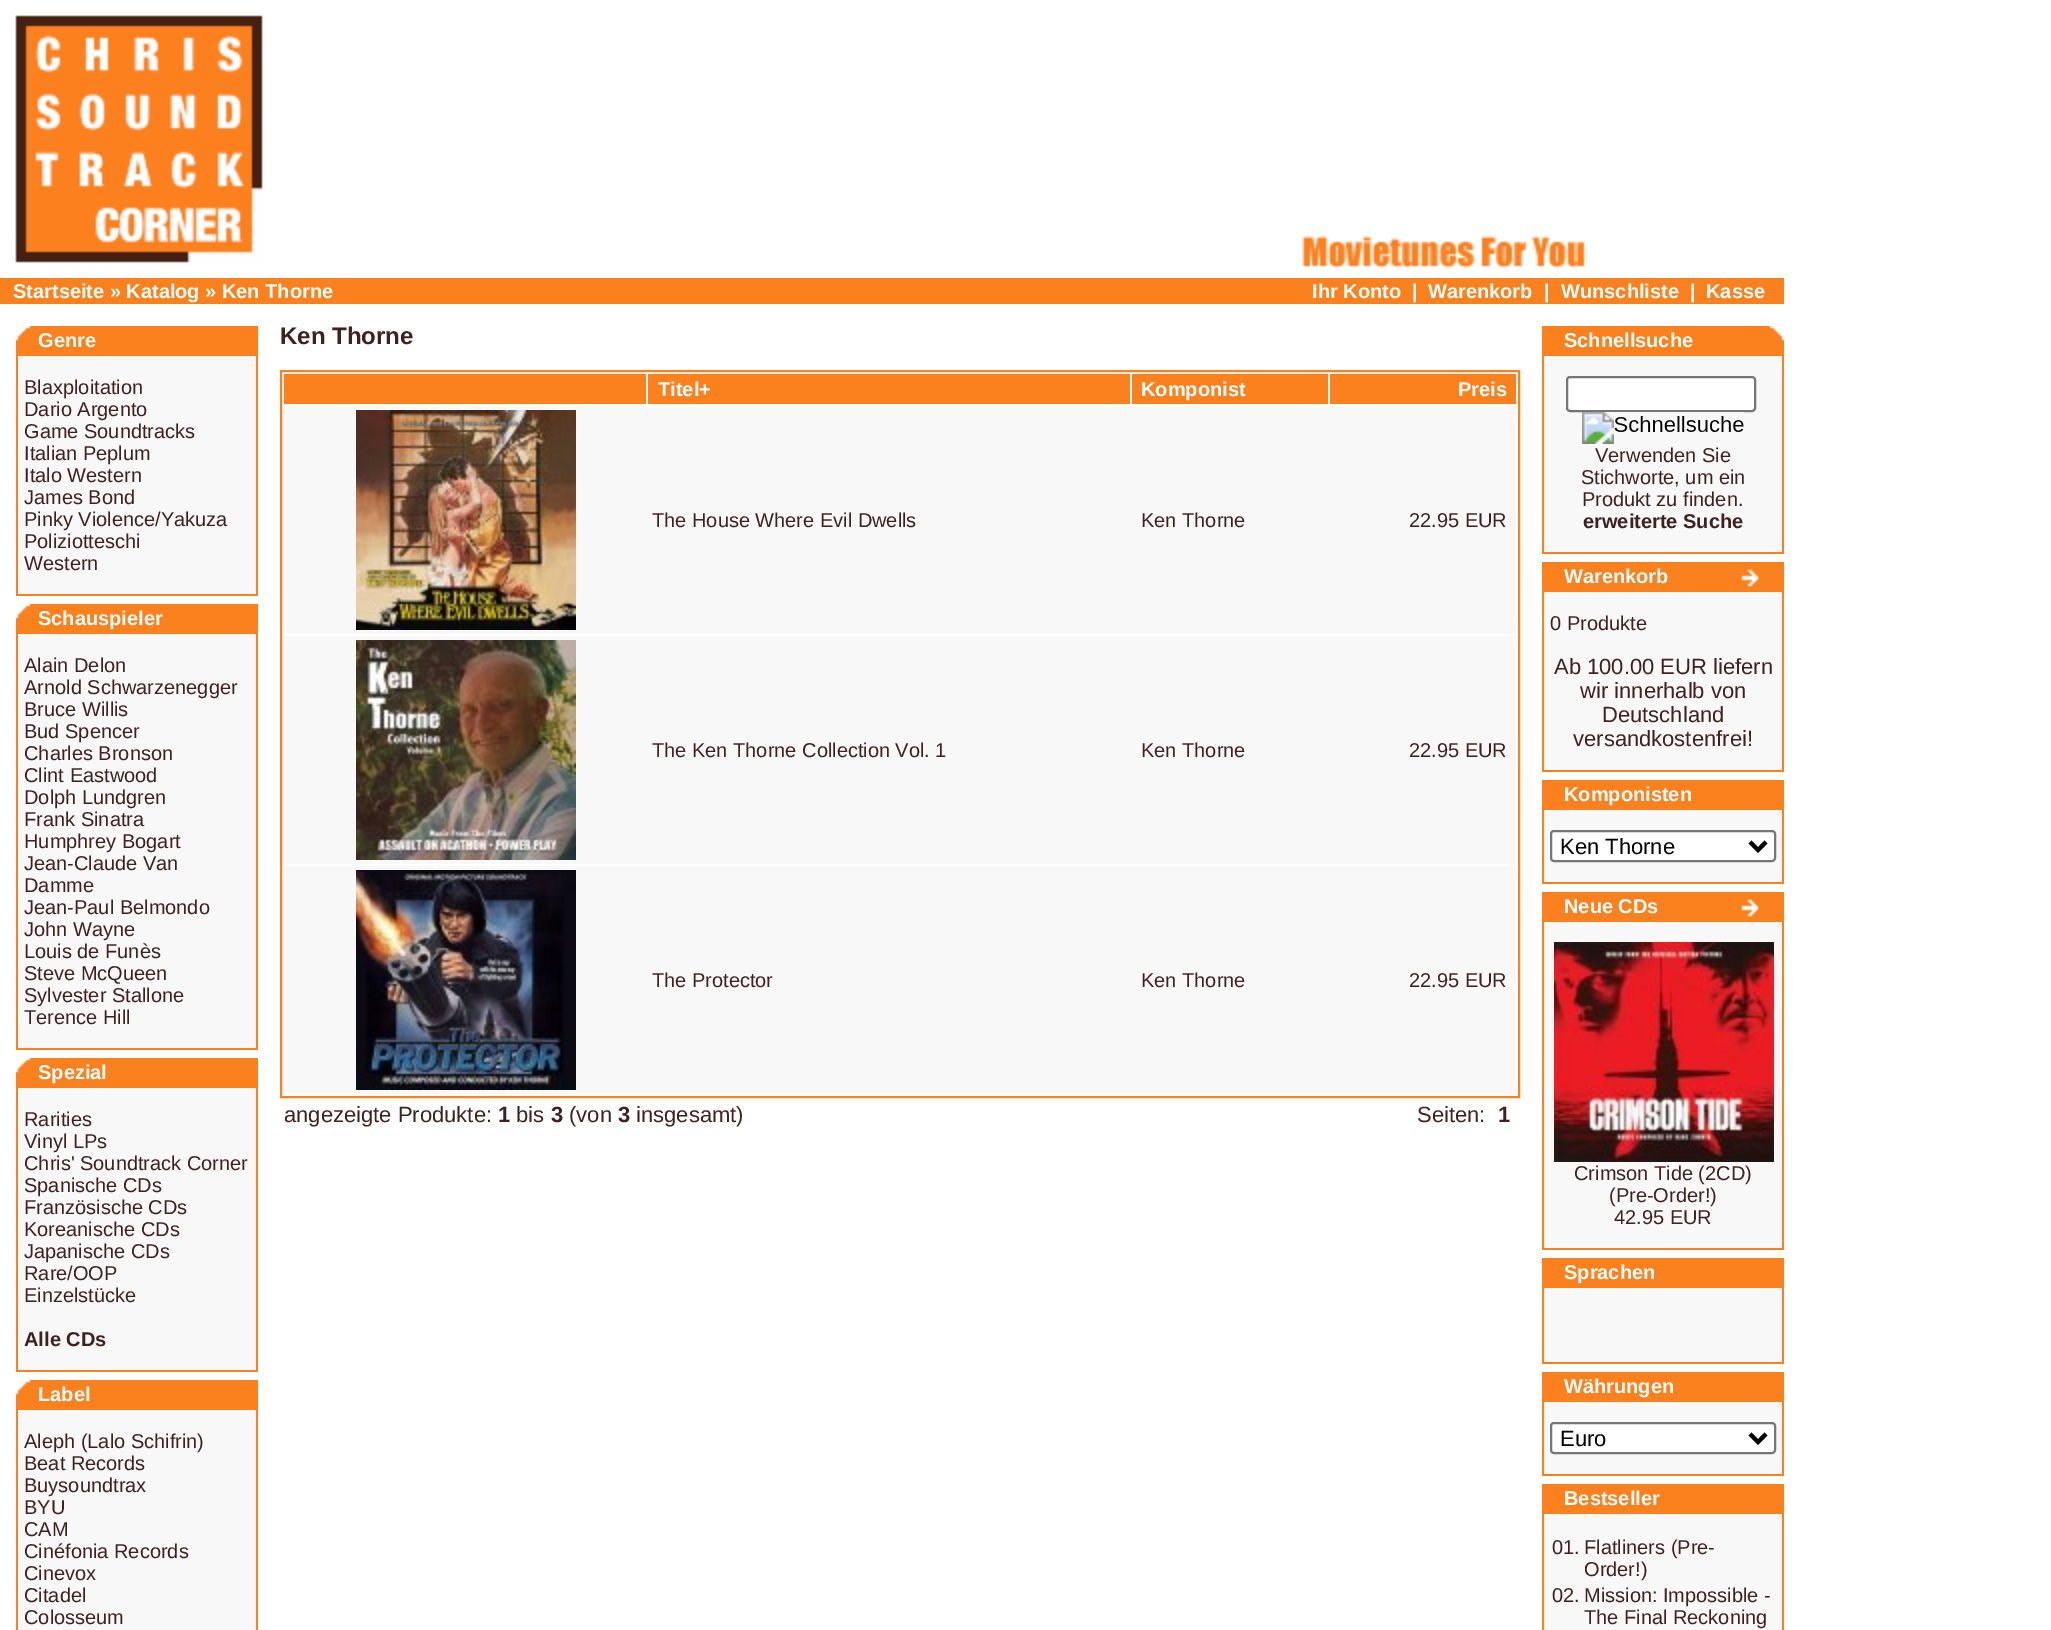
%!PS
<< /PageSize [2051 1630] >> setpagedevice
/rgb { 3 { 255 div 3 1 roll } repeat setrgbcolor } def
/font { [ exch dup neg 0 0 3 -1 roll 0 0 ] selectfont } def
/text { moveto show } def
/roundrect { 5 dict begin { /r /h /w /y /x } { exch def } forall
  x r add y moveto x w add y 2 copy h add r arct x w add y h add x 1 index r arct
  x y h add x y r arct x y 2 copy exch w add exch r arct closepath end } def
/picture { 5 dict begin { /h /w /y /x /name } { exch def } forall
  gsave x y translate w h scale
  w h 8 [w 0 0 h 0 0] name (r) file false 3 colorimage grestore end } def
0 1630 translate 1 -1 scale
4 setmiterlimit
255 255 255 rgb
0 0 2051 1630 rectfill
(img_01.rgb) 15 15 248 248 picture
(img_02.rgb) 1301 235 284 34 picture
251 128 30 rgb
0 278 1784 26 rectfill
16 326 242 270 rectfill
(img_03.rgb) 16 326 15 15 picture
248 248 249 rgb
18 356 238 238 rectfill
251 128 30 rgb
16 604 242 446 rectfill
(img_03.rgb) 16 604 15 15 picture
248 248 249 rgb
18 634 238 414 rectfill
251 128 30 rgb
16 1058 242 314 rectfill
(img_03.rgb) 16 1058 15 15 picture
248 248 249 rgb
18 1088 238 282 rectfill
251 128 30 rgb
16 1380 242 250 rectfill
(img_03.rgb) 16 1380 15 15 picture
248 248 249 rgb
18 1410 238 220 rectfill
251 128 30 rgb
2 setlinewidth
281 371 1238 726 rectstroke
284 374 362 30 rectfill
648 374 482 30 rectfill
1132 374 196 30 rectfill
1330 374 186 30 rectfill
248 248 249 rgb
284 406 1232 228 rectfill
(img_04.rgb) 356 410 220 220 picture
284 636 1232 228 rectfill
(img_05.rgb) 356 640 220 220 picture
284 866 1232 228 rectfill
(img_06.rgb) 356 870 220 220 picture
251 128 30 rgb
1542 326 242 228 rectfill
(img_07.rgb) 1769 326 15 15 picture
248 248 249 rgb
1544 356 238 196 rectfill
255 255 255 rgb
1567 377 188 34 3 roundrect gsave fill grestore
118 118 118 rgb
stroke
(img_08.rgb) 1582 412 162 32 picture
251 128 30 rgb
1542 562 242 210 rectfill
(img_09.rgb) 1741 569 18 18 picture
248 248 249 rgb
1544 592 238 178 rectfill
251 128 30 rgb
1542 780 242 104 rectfill
248 248 249 rgb
1544 810 238 72 rectfill
255 255 255 rgb
1551 831 224 30 3 roundrect gsave fill grestore
118 118 118 rgb
stroke
0 0 0 rgb
4 setlinewidth
1750 842 moveto 8 8 rlineto 8 -8 rlineto stroke
251 128 30 rgb
1542 892 242 358 rectfill
(img_09.rgb) 1741 899 18 18 picture
248 248 249 rgb
1544 922 238 326 rectfill
(img_10.rgb) 1554 942 220 220 picture
251 128 30 rgb
1542 1258 242 106 rectfill
248 248 249 rgb
1544 1288 238 74 rectfill
251 128 30 rgb
1542 1372 242 104 rectfill
248 248 249 rgb
1544 1402 238 72 rectfill
255 255 255 rgb
1551 1423 224 30 3 roundrect gsave fill grestore
118 118 118 rgb
2 setlinewidth
stroke
0 0 0 rgb
4 setlinewidth
1750 1434 moveto 8 8 rlineto 8 -8 rlineto stroke
251 128 30 rgb
1542 1484 242 146 rectfill
248 248 249 rgb
1544 1514 238 116 rectfill
/LiberationSans-Bold 20 font
255 255 255 rgb
(Startseite » Katalog » Ken Thorne) 13 298 text
(Ihr Konto) 1312 298 text
(|) 1412 298 text
(Warenkorb) 1428 298 text
(|) 1544 298 text
(Wunschliste) 1561 298 text
(|) 1690 298 text
(Kasse) 1706 298 text
(Genre) 38 347 text
/LiberationSans-Regular 20 font
64 33 33 rgb
(Blaxploitation) 24 394 text
(Dario Argento) 24 416 text
(Game Soundtracks) 24 438 text
(Italian Peplum) 24 460 text
(Italo Western) 24 482 text
(James Bond) 24 504 text
(Pinky Violence/Yakuza) 24 526 text
(Poliziotteschi) 24 548 text
(Western) 24 570 text
/LiberationSans-Bold 20 font
255 255 255 rgb
(Schauspieler) 38 625 text
/LiberationSans-Regular 20 font
64 33 33 rgb
(Alain Delon) 24 672 text
(Arnold Schwarzenegger) 24 694 text
(Bruce Willis) 24 716 text
(Bud Spencer) 24 738 text
(Charles Bronson) 24 760 text
(Clint Eastwood) 24 782 text
(Dolph Lundgren) 24 804 text
(Frank Sinatra) 24 826 text
(Humphrey Bogart) 24 848 text
(Jean-Claude Van) 24 870 text
(Damme) 24 892 text
(Jean-Paul Belmondo) 24 914 text
(John Wayne) 24 936 text
(Louis de Funès) 24 958 text
(Steve McQueen) 24 980 text
(Sylvester Stallone) 24 1002 text
(Terence Hill) 24 1024 text
/LiberationSans-Bold 20 font
255 255 255 rgb
(Spezial) 38 1079 text
/LiberationSans-Regular 20 font
64 33 33 rgb
(Rarities) 24 1126 text
(Vinyl LPs) 24 1148 text
(Chris' Soundtrack Corner) 24 1170 text
(Spanische CDs) 24 1192 text
(Französische CDs) 24 1214 text
(Koreanische CDs) 24 1236 text
(Japanische CDs) 24 1258 text
(Rare/OOP) 24 1280 text
(Einzelstücke) 24 1302 text
/LiberationSans-Bold 20 font
(Alle CDs) 24 1346 text
255 255 255 rgb
(Label) 38 1401 text
/LiberationSans-Regular 20 font
64 33 33 rgb
(Aleph \(Lalo Schifrin\)) 24 1448 text
(Beat Records) 24 1470 text
(Buysoundtrax) 24 1492 text
(BYU) 24 1514 text
(CAM) 24 1536 text
(Cinéfonia Records) 24 1558 text
(Cinevox) 24 1580 text
(Citadel) 24 1602 text
(Colosseum) 24 1624 text
/LiberationSans-Bold 24 font
(Ken Thorne) 280 344 text
/LiberationSans-Bold 20 font
255 255 255 rgb
(Titel+) 658 396 text
(Komponist) 1141 396 text
(Preis) 1458 396 text
/LiberationSans-Regular 20 font
64 33 33 rgb
(The House Where Evil Dwells) 652 527 text
(Ken Thorne) 1141 527 text
(22.95 EUR) 1409 527 text
(The Ken Thorne Collection Vol. 1) 652 757 text
(Ken Thorne) 1141 757 text
(22.95 EUR) 1409 757 text
(The Protector) 652 987 text
(Ken Thorne) 1141 987 text
(22.95 EUR) 1409 987 text
/LiberationSans-Regular 22 font
(angezeigte Produkte:) 284 1122 text
/LiberationSans-Bold 22 font
(1) 498 1122 text
/LiberationSans-Regular 22 font
(bis) 516 1122 text
/LiberationSans-Bold 22 font
(3) 551 1122 text
/LiberationSans-Regular 22 font
(\(von) 569 1122 text
/LiberationSans-Bold 22 font
(3) 618 1122 text
/LiberationSans-Regular 22 font
(insgesamt\)) 636 1122 text
(Seiten:) 1417 1122 text
/LiberationSans-Bold 22 font
(1) 1498 1122 text
/LiberationSans-Bold 20 font
255 255 255 rgb
(Schnellsuche) 1564 347 text
/LiberationSans-Regular 20 font
64 33 33 rgb
(Verwenden Sie) 1595 462 text
(Stichworte, um ein) 1581 484 text
(Produkt zu finden.) 1582 506 text
/LiberationSans-Bold 20 font
(erweiterte Suche) 1583 528 text
255 255 255 rgb
(Warenkorb) 1564 583 text
/LiberationSans-Regular 20 font
64 33 33 rgb
(0 Produkte) 1550 630 text
/LiberationSans-Regular 22 font
(Ab 100.00 EUR liefern) 1554 674 text
(wir innerhalb von) 1580 698 text
(Deutschland) 1602 722 text
(versandkostenfrei!) 1573 746 text
/LiberationSans-Bold 20 font
255 255 255 rgb
(Komponisten) 1564 801 text
/LiberationSans-Regular 22 font
0 0 0 rgb
(Ken Thorne) 1560 854 text
/LiberationSans-Bold 20 font
255 255 255 rgb
(Neue CDs) 1564 913 text
/LiberationSans-Regular 20 font
64 33 33 rgb
(Crimson Tide \(2CD\)) 1574 1180 text
(\(Pre-Order!\)) 1609 1202 text
(42.95 EUR) 1614 1224 text
/LiberationSans-Bold 20 font
255 255 255 rgb
(Sprachen) 1564 1279 text
(Währungen) 1564 1393 text
/LiberationSans-Regular 22 font
0 0 0 rgb
(Euro) 1560 1446 text
/LiberationSans-Bold 20 font
255 255 255 rgb
(Bestseller) 1564 1505 text
/LiberationSans-Regular 20 font
64 33 33 rgb
(01.) 1552 1554 text
(Flatliners \(Pre-) 1584 1554 text
(Order!\)) 1584 1576 text
(02.) 1552 1602 text
(Mission: Impossible -) 1584 1602 text
(The Final Reckoning) 1584 1624 text
showpage
